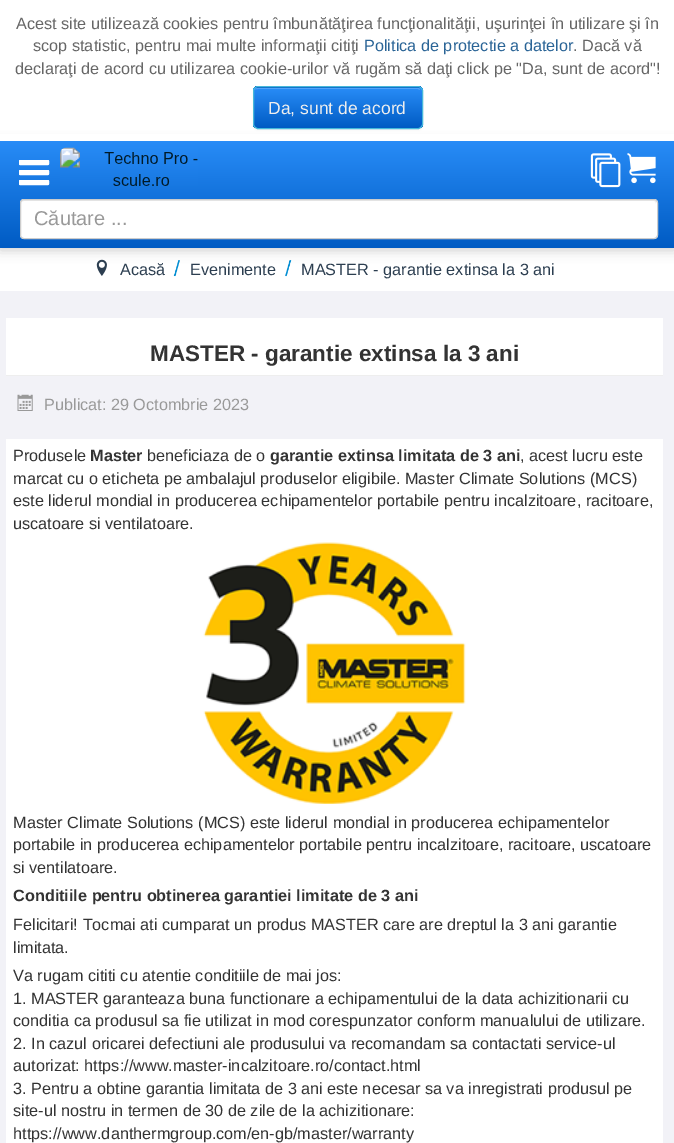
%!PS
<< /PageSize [674 1143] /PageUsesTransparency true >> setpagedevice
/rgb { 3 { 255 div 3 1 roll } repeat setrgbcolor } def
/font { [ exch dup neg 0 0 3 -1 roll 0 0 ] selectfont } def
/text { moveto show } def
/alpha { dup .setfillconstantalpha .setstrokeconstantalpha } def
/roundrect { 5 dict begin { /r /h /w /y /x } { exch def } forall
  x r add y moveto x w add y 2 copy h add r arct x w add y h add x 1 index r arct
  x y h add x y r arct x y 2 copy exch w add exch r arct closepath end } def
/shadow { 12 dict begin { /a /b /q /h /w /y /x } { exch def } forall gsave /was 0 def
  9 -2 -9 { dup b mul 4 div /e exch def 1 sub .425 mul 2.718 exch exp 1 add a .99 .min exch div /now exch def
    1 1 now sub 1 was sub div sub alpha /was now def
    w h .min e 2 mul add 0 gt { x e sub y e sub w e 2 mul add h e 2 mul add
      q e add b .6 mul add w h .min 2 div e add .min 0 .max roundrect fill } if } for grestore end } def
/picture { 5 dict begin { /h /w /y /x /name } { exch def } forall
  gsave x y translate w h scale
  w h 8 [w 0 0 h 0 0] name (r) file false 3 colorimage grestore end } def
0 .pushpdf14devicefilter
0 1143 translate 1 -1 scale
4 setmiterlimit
255 255 255 rgb
0 0 674 1143 rectfill
0 0 0 rgb
0 144 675 106 0 6 0.2 shadow
255 255 255 rgb
0 134 674 7 rectfill
0 0 0 rgb
253 88 170 42 5 1 0.05 shadow
gsave
253 86 170 43 5 roundrect clip newpath
gsave 253 86 moveto 170 0 rlineto 0 2 rlineto -170 0 rlineto closepath clip newpath
<< /ShadingType 2 /ColorSpace /DeviceRGB /Coords [338 88 338 48] /Extend [true true] /Function << /FunctionType 2 /Domain [0 1] /C0 [0 0.357 0.765] /C1 [0.157 0.549 0.969] /N 1 >> >> shfill grestore
gsave 253 88 moveto 170 0 rlineto 0 40 rlineto -170 0 rlineto closepath clip newpath
<< /ShadingType 2 /ColorSpace /DeviceRGB /Coords [338 128 338 88] /Extend [true true] /Function << /FunctionType 2 /Domain [0 1] /C0 [0 0.357 0.765] /C1 [0.157 0.549 0.969] /N 1 >> >> shfill grestore
grestore
82 162 248 rgb
258 89 moveto 160 0 rlineto 2 1 rlineto -1 -2 rlineto -162 0 rlineto -1 1 -2 1 -3 2 rcurveto 1 -1 2 -1 4 -1 rcurveto closepath fill
70 184 218 rgb
253.5 86.5 169 42 4.5 roundrect stroke
gsave 0 141 moveto 674 0 rlineto 0 107 rlineto -674 0 rlineto closepath clip newpath
<< /ShadingType 2 /ColorSpace /DeviceRGB /Coords [338 248 338 141] /Extend [true true] /Function << /FunctionType 2 /Domain [0 1] /C0 [0 0.357 0.765] /C1 [0.157 0.549 0.969] /N 1 >> >> shfill grestore
255 255 255 rgb
19.5 160.5 29 4 0.5 roundrect gsave fill grestore
stroke
19.5 170.5 29 4 0.5 roundrect gsave fill grestore
stroke
19.5 180.5 29 4 0.5 roundrect gsave fill grestore
stroke
(img_01.rgb) 60 147 138 39 picture
(img_02.rgb) 590 153 31 35 picture
(img_03.rgb) 627 153 29 31 picture
20 199 638 40 4 roundrect fill
236 236 236 rgb
24 201 moveto 630 0 rlineto 1 0 2 1 2 3 rcurveto 0 -2 rlineto 0 -1 -1 -2 -2 -2 rcurveto -630 0 rlineto -2 0 -3 1 -3 2 rcurveto 0 2 rlineto 0 -2 1 -3 3 -3 rcurveto closepath fill
204 204 204 rgb
20.5 199.5 637 39 3.5 roundrect stroke
(img_04.rgb) 96 259 11 17 picture
(img_05.rgb) 173 260 7 17 picture
(img_06.rgb) 285 260 7 17 picture
242 242 247 rgb
0 291 674 852 rectfill
255 255 255 rgb
6 318 657 57 rectfill
238 238 238 rgb
6 375 657 1 rectfill
(img_07.rgb) 17 394 16 17 picture
255 255 255 rgb
6 439 657 704 rectfill
(img_08.rgb) 203 542 263 262 picture
/LiberationSans-Regular 16.25 font
102 102 102 rgb
(Acest site utilizează cookies pentru îmbunătăţirea funcţionalităţii, uşurinţei în utilizare şi în) 16 29 text
(scop statistic, pentru mai multe informaţii citiţi) 33 51 text
42 100 150 rgb
(Politica de protectie a datelor) 364 51 text
102 102 102 rgb
(. Dacă vă) 573 51 text
(declaraţi de acord cu utilizarea cookie-urilor vă rugăm să daţi click pe "Da, sunt de acord"!) 15 74 text
/LiberationSans-Regular 17.5 font
238 238 238 rgb
(Da, sunt de acord) 268 114 text
/LiberationSans-Regular 20 font
153 153 153 rgb
(Căutare ...) 34 225 text
/LiberationSans-Regular 16.25 font
44 62 80 rgb
(Acasă) 120 275 text
(Evenimente) 190 275 text
(MASTER - garantie extinsa la 3 ani) 301 275 text
/LiberationSans-Bold 22.5 font
51 51 51 rgb
(MASTER - garantie extinsa la 3 ani) 150 361 text
/LiberationSans-Regular 16.25 font
153 153 153 rgb
(Publicat: 29 Octombrie 2023) 44 410 text
51 51 51 rgb
(Produsele) 13 461 text
/LiberationSans-Bold 16.25 font
(Master) 90 461 text
/LiberationSans-Regular 16.25 font
(beneficiaza de o) 147 461 text
/LiberationSans-Bold 16.25 font
(garantie extinsa limitata de 3 ani) 270 461 text
/LiberationSans-Regular 16.25 font
(, acest lucru este) 520 461 text
(marcat cu o eticheta pe ambalajul produselor eligibile. Master Climate Solutions \(MCS\)) 13 484 text
(este liderul mondial in producerea echipamentelor portabile pentru incalzitoare, racitoare,) 13 506 text
(uscatoare si ventilatoare.) 13 529 text
(Master Climate Solutions \(MCS\) este liderul mondial in producerea echipamentelor) 13 828 text
(portabile in producerea echipamentelor portabile pentru incalzitoare, racitoare, uscatoare) 13 850 text
(si ventilatoare.) 13 873 text
/LiberationSans-Bold 16.25 font
(Conditiile pentru obtinerea garantiei limitate de 3 ani) 13 901 text
/LiberationSans-Regular 16.25 font
(Felicitari! Tocmai ati cumparat un produs MASTER care are dreptul la 3 ani garantie) 13 930 text
(limitata.) 13 953 text
(Va rugam cititi cu atentie conditiile de mai jos:) 13 981 text
(1. MASTER garanteaza buna functionare a echipamentului de la data achizitionarii cu) 13 1004 text
(conditia ca produsul sa fie utilizat in mod corespunzator conform manualului de utilizare.) 13 1026 text
(2. In cazul oricarei defectiuni ale produsului va recomandam sa contactati service-ul) 13 1049 text
(autorizat: https://www.master-incalzitoare.ro/contact.html) 13 1071 text
(3. Pentru a obtine garantia limitata de 3 ani este necesar sa va inregistrati produsul pe) 13 1094 text
(site-ul nostru in termen de 30 de zile de la achizitionare:) 13 1116 text
(https://www.danthermgroup.com/en-gb/master/warranty) 13 1139 text
.poppdf14devicefilter showpage
